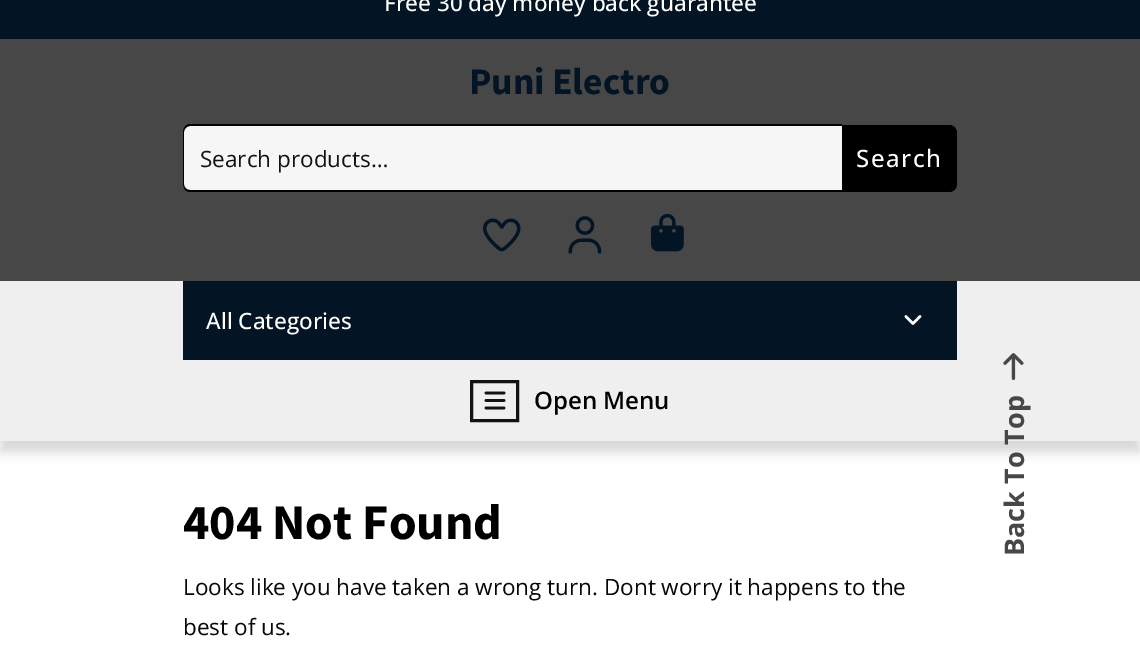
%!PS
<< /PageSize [1140 652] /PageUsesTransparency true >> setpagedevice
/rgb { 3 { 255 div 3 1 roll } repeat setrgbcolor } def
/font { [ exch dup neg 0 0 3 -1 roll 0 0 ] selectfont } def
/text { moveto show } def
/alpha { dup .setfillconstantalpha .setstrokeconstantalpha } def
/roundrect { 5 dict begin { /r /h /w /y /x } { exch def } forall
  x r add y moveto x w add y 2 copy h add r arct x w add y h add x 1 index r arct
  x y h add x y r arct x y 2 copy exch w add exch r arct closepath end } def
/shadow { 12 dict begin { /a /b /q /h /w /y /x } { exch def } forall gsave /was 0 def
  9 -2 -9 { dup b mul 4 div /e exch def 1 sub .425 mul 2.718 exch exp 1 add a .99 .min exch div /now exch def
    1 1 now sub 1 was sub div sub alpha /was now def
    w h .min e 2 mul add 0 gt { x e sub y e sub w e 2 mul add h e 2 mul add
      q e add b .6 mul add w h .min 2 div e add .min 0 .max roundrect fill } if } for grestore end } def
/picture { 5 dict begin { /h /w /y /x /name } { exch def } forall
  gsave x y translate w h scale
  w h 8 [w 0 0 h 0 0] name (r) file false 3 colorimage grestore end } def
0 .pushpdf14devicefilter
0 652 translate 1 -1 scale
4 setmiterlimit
255 255 255 rgb
0 0 1140 652 rectfill
3 20 36 rgb
0 0 1140 39 rectfill
71 71 71 rgb
0 39 1140 242 rectfill
246 246 246 rgb
191 125 moveto 651 0 rlineto 0 67 rlineto -651 0 rlineto -4.5 0 -8 -3.5 -8 -8 rcurveto 0 -51 rlineto 0 -4.5 3.5 -8 8 -8 rcurveto closepath fill
0 0 0 rgb
190 124 moveto 652 0 rlineto 0 68 rlineto -652 0 rlineto -4 0 -7 -3 -7 -8 rcurveto 0 -52 rlineto 0 -4 3 -8 7 -8 rcurveto closepath 190 126 moveto 652 0 rlineto 0 64 rlineto -652 0 rlineto -3 0 -6 -2 -6 -6 rcurveto 0 -52 rlineto 0 -3 3 -6 6 -6 rcurveto closepath eofill
842 125 moveto 107 0 rlineto 4.5 0 8 3.5 8 8 rcurveto 0 51 rlineto 0 4.5 -3.5 8 -8 8 rcurveto -107 0 rlineto closepath fill
(img_01.rgb) 483 218 38 34 picture
(img_02.rgb) 568 216 34 38 picture
(img_03.rgb) 651 213 33 39 picture
0 291 1140 161 0 6 0.16 shadow
239 239 239 rgb
0 281 1140 160 rectfill
3 20 36 rgb
183 281 774 79 rectfill
(img_04.rgb) 904 315 18 10 picture
18 18 18 rgb
3 setlinewidth
471.5 381.5 46 39 rectstroke
(img_05.rgb) 484 391 22 19 picture
(img_06.rgb) 1003 353 21 28 picture
/OpenSans-Medium 22.5 font
255 255 255 rgb
(Free 30 day money back guarantee) 384 11 text
/SourceSansPro-Bold 37.5 font
3 20 36 rgb
(Puni Electro) 469 94 text
/OpenSans-Regular 22.5 font
18 18 18 rgb
(Search products…) 200 167 text
/OpenSans-Medium 24 font
255 255 255 rgb
856 167 moveto 1.5 0 (Search) ashow
/OpenSans-Medium 22.5 font
(All Categories) 206 329 text
/OpenSans-SemiBold 24 font
0 0 0 rgb
(Open Menu) 534 409 text
/OpenSans-Bold 27 font
71 71 71 rgb
gsave 1024 556 translate -90 rotate 0 0 moveto (Back To Top) show grestore
/SourceSansPro-Bold 50 font
0 0 0 rgb
(404 Not Found) 183 539 text
/OpenSans-Regular 22.5 font
6 7 9 rgb
(Looks like you have taken a wrong turn. Dont worry it happens to the) 183 595 text
(best of us.) 183 635 text
.poppdf14devicefilter showpage
